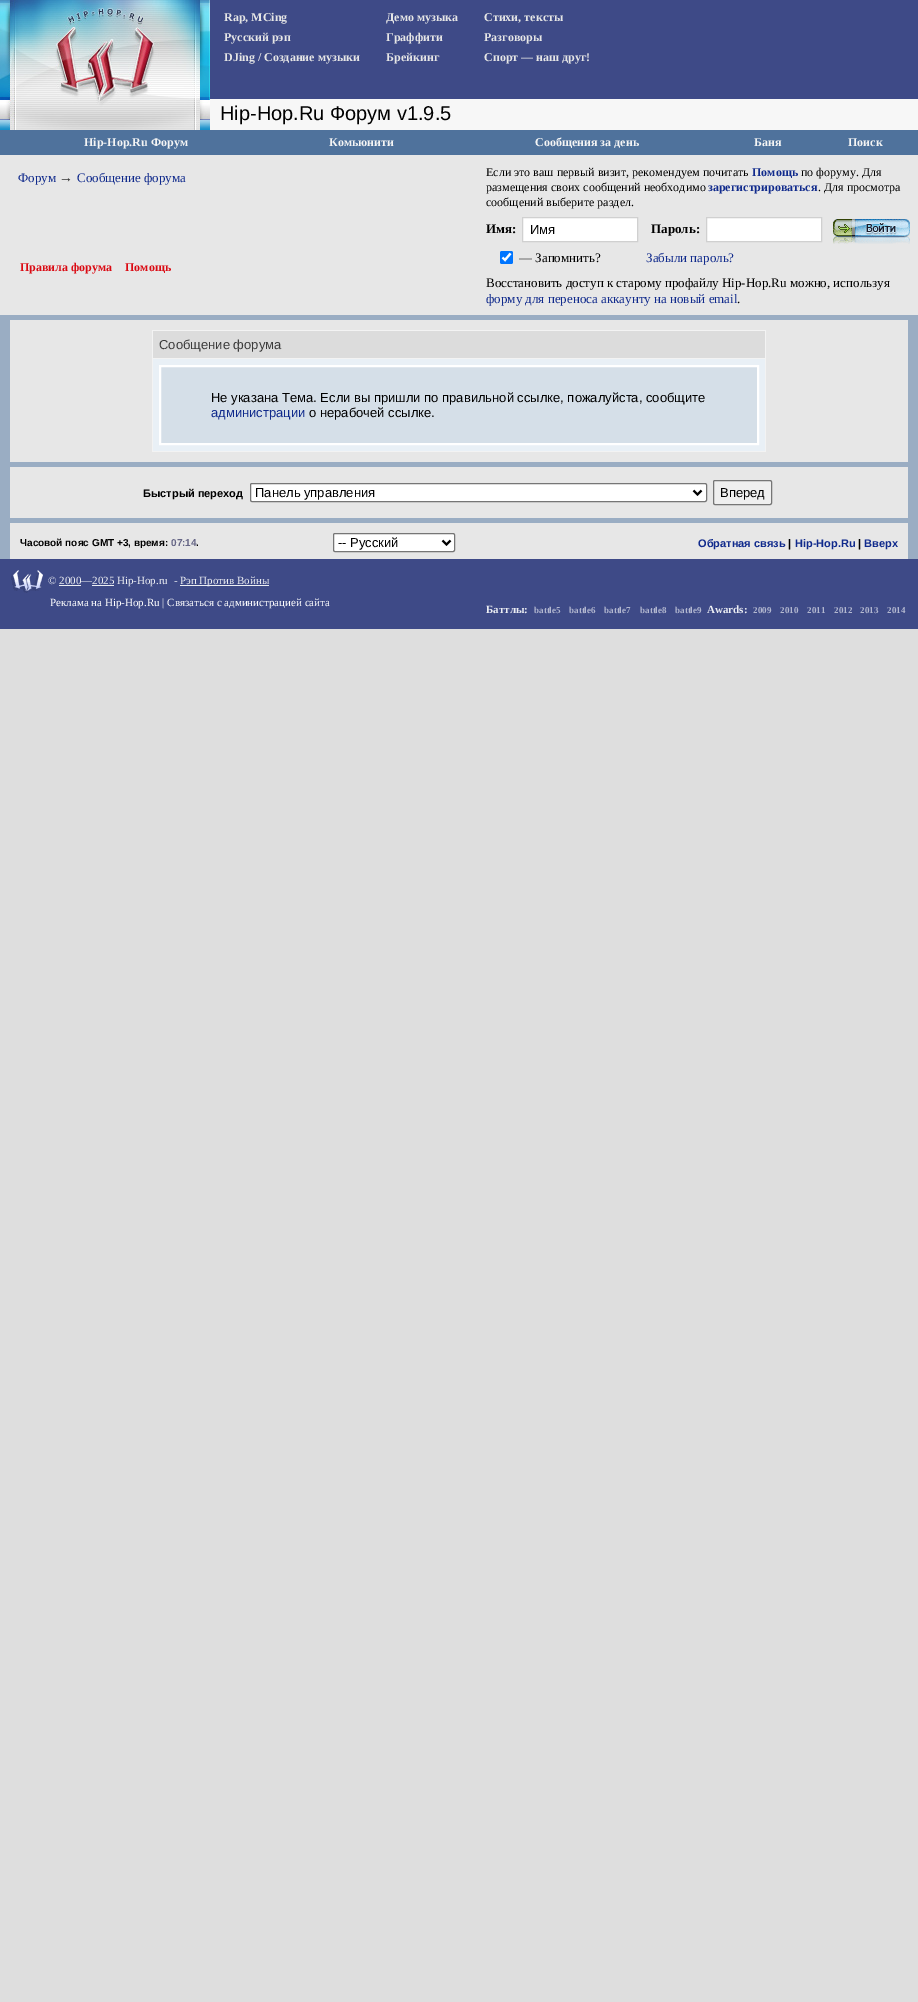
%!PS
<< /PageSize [918 2002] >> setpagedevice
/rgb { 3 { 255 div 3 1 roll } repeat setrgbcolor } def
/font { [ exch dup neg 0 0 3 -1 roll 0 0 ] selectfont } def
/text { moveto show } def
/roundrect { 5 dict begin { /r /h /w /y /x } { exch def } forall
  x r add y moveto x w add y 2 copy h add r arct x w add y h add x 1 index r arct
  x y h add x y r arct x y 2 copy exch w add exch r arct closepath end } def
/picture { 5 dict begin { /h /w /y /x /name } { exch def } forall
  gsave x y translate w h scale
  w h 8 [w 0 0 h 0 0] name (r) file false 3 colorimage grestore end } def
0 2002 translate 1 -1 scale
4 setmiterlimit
222 222 222 rgb
0 0 918 2002 rectfill
(img_01.rgb) 0 0 210 120 picture
(img_02.rgb) 0 120 210 10 picture
62 74 135 rgb
210 0 708 99 rectfill
247 247 247 rgb
210 99 708 31 rectfill
79 114 156 rgb
0 130 918 25 rectfill
231 231 231 rgb
0 155 918 160 rectfill
154 173 195 rgb
0 315 918 244 rectfill
255 255 255 rgb
522.5 217.5 moveto 115 0 rlineto 0 24 rlineto -115 0 rlineto closepath gsave fill grestore
208 208 208 rgb
stroke
255 255 255 rgb
706.5 217.5 moveto 115 0 rlineto 0 24 rlineto -115 0 rlineto closepath gsave fill grestore
208 208 208 rgb
stroke
(img_03.rgb) 833 219 77 25 picture
0 117 255 rgb
500 251 13 13 2 roundrect fill
255 255 255 rgb
2.1 setlinewidth
502.5 257.5 moveto 2.5 2.5 rlineto 5.5 -6.5 rlineto stroke
231 231 231 rgb
10 320 898 142 rectfill
243 243 243 rgb
152 330 614 122 rectfill
220 220 220 rgb
153 331 612 27 rectfill
233 240 246 rgb
153 359 612 92 rectfill
213 223 232 rgb
160 366 moveto 598 0 rlineto 0 78 rlineto -598 0 rlineto closepath gsave fill grestore
255 255 255 rgb
2 setlinewidth
stroke
231 231 231 rgb
10 467 898 51 rectfill
255 255 255 rgb
250.5 483.5 456 18 1.5 roundrect gsave fill grestore
118 118 118 rgb
1 setlinewidth
stroke
0 0 0 rgb
2 setlinewidth
693.5 490.5 moveto 4 4 rlineto 4 -4 rlineto stroke
239 239 239 rgb
713.5 480.5 58 24 1.5 roundrect gsave fill grestore
118 118 118 rgb
1 setlinewidth
stroke
231 231 231 rgb
10 523 898 36 rectfill
255 255 255 rgb
333.5 533.5 121 18 1.5 roundrect gsave fill grestore
118 118 118 rgb
stroke
0 0 0 rgb
2 setlinewidth
442.5 540.5 moveto 4 4 rlineto 4 -4 rlineto stroke
62 74 135 rgb
0 559 918 70 rectfill
(img_04.rgb) 11 570 32 23 picture
236 238 243 rgb
59 585 22 1 rectfill
92 585 22 1 rectfill
180 585 89 1 rectfill
/LiberationSerif-Bold 12 font
230 230 230 rgb
(Rap, MCing) 224 21 text
(Русский рэп) 224 41 text
(DJing / Создание музыки) 224 61 text
(Демо музыка) 386 21 text
(Граффити) 386 41 text
(Брейкинг) 386 61 text
(Стихи, тексты) 484 21 text
(Разговоры) 484 41 text
(Спорт — наш друг!) 484 61 text
/LiberationSans-Regular 20 font
0 0 0 rgb
(Hip-Hop.Ru Форум v1.9.5) 220 120 text
/LiberationSerif-Bold 12 font
245 245 245 rgb
(Hip-Hop.Ru Форум) 84 146 text
(Комьюнити) 329 146 text
(Сообщения за день) 535 146 text
(Баня) 754 146 text
(Поиск) 848 146 text
/LiberationSerif-Regular 13 font
16 42 140 rgb
(Форум) 18 182 text
/LiberationSerif-Regular 14 font
51 51 51 rgb
(→) 59 182 text
/LiberationSerif-Regular 13 font
16 42 140 rgb
(Сообщение форума) 77 182 text
/LiberationSerif-Bold 12 font
219 9 18 rgb
(Правила форума) 20 271 text
(Помощь) 125 271 text
/LiberationSerif-Regular 12 font
0 0 0 rgb
(Если это ваш первый визит, рекомендуем почитать) 486 176 text
/LiberationSerif-Bold 12 font
16 42 140 rgb
(Помощь) 752 176 text
/LiberationSerif-Regular 12 font
0 0 0 rgb
(по форуму. Для) 801 176 text
(размещения своих сообщений необходимо) 486 191 text
/LiberationSerif-Bold 12 font
16 42 140 rgb
(зарегистрироваться) 708 191 text
/LiberationSerif-Regular 12 font
0 0 0 rgb
(. Для просмотра) 818 191 text
(сообщений выберите раздел.) 486 206 text
/LiberationSerif-Bold 13 font
(Имя:) 486 233 text
/LiberationSans-Regular 13 font
(Имя) 530 234 text
/LiberationSerif-Bold 13 font
(Пароль:) 651 233 text
/LiberationSerif-Regular 13 font
(— Запомнить?) 519 262 text
16 42 140 rgb
(Забыли пароль?) 646 262 text
0 0 0 rgb
(Восстановить доступ к старому профайлу Hip-Hop.Ru можно, используя) 486 287 text
16 42 140 rgb
(форму для переноса аккаунту на новый email) 486 303 text
0 0 0 rgb
(.) 737 303 text
/LiberationSans-Regular 13 font
60 60 60 rgb
(Сообщение форума) 159 349 text
0 0 0 rgb
(Не указана Тема. Если вы пришли по правильной ссылке, пожалуйста, сообщите) 211 402 text
16 42 140 rgb
(администрации) 211 417 text
0 0 0 rgb
(о нерабочей ссылке.) 309 417 text
/LiberationSans-Bold 11 font
(Быстрый переход) 143 497 text
/LiberationSans-Regular 13 font
(Панель управления) 255 497 text
(Вперед) 720 497 text
/LiberationSans-Bold 10 font
(Часовой пояс GMT +3, время:) 20 546 text
102 102 134 rgb
(07:14) 171 546 text
0 0 0 rgb
(.) 196 546 text
/LiberationSans-Regular 13 font
(-- Русский) 338 547 text
/LiberationSans-Bold 11 font
16 42 140 rgb
(Обратная связь) 698 547 text
0 0 0 rgb
(|) 788 547 text
16 42 140 rgb
(Hip-Hop.Ru) 795 547 text
0 0 0 rgb
(|) 858 547 text
16 42 140 rgb
(Вверх) 864 547 text
/LiberationSerif-Regular 11 font
236 238 243 rgb
(© 2000—2025 Hip-Hop.ru) 48 584 text
(-) 174 584 text
(Рэп Против Войны) 180 584 text
255 255 255 rgb
(Реклама на Hip-Hop.Ru | Связаться с администрацией сайта) 50 606 text
/LiberationSerif-Bold 11 font
236 238 243 rgb
(Баттлы:) 486 613 text
/LiberationSerif-Bold 9 font
179 184 208 rgb
(battle5) 534 613 text
(battle6) 569 613 text
(battle7) 604 613 text
(battle8) 640 613 text
(battle9) 675 613 text
/LiberationSerif-Bold 11 font
236 238 243 rgb
(Awards:) 707 613 text
/LiberationSerif-Bold 9 font
179 184 208 rgb
(2009) 753 613 text
(2010) 780 613 text
(2011) 807 613 text
(2012) 834 613 text
(2013) 860 613 text
(2014) 887 613 text
showpage
